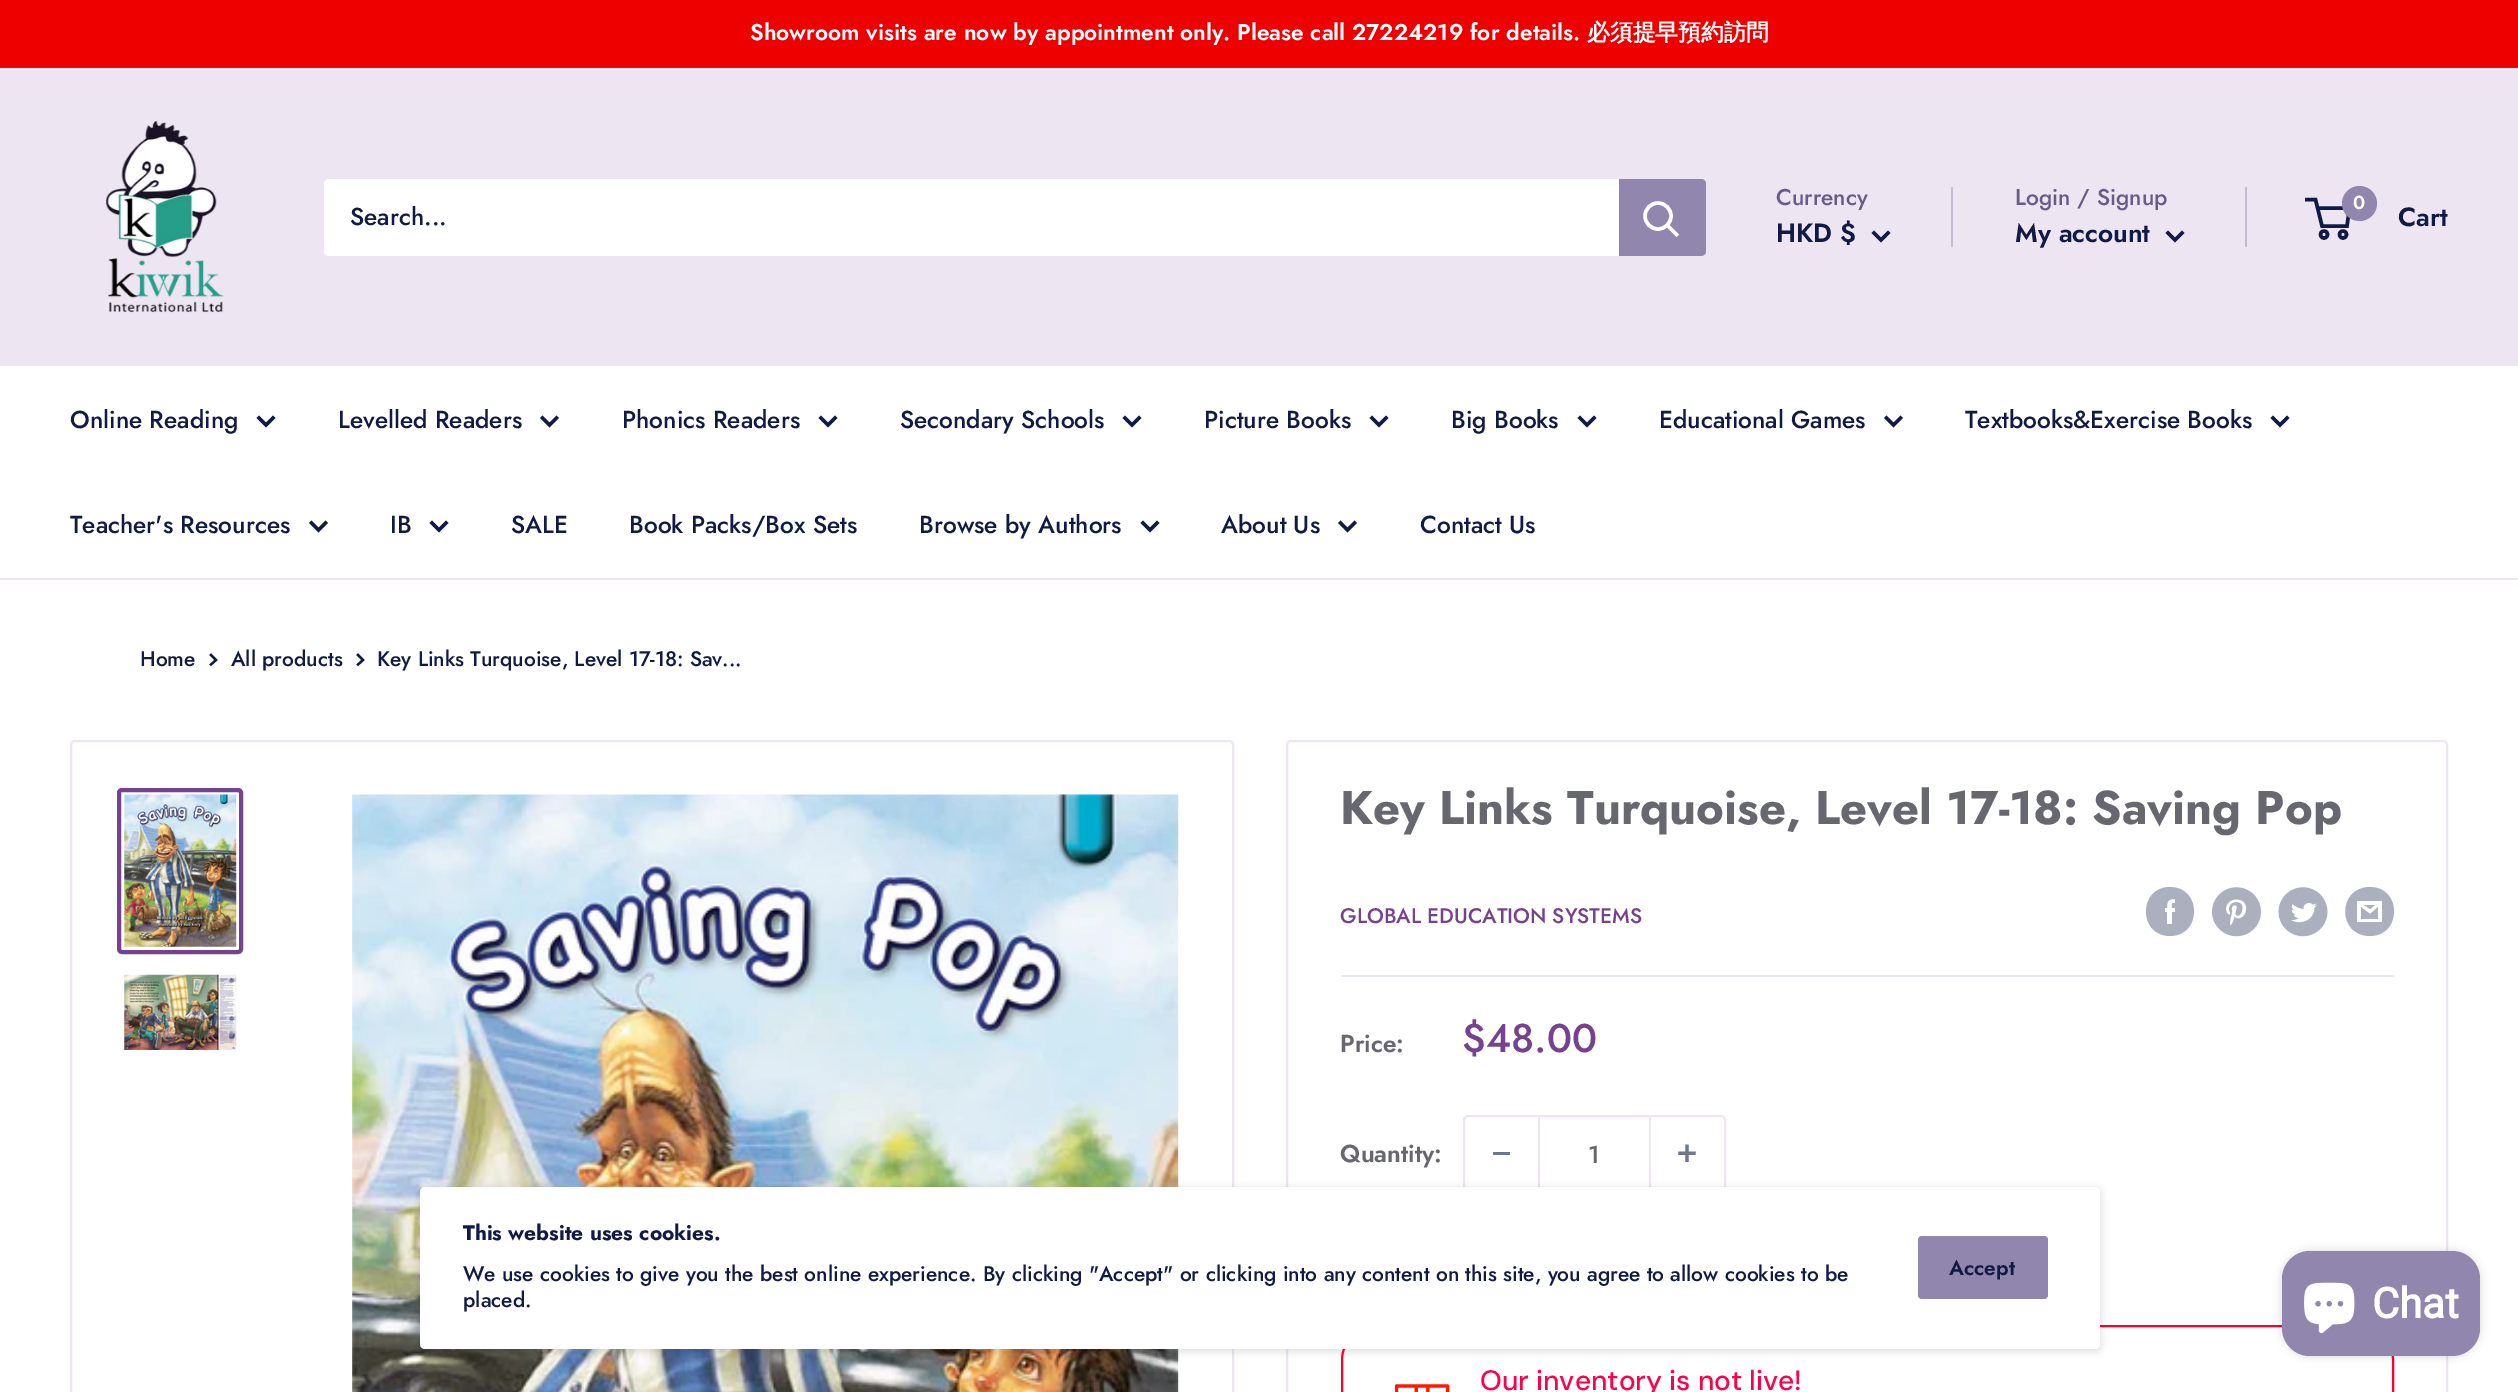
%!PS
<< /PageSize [2518 1392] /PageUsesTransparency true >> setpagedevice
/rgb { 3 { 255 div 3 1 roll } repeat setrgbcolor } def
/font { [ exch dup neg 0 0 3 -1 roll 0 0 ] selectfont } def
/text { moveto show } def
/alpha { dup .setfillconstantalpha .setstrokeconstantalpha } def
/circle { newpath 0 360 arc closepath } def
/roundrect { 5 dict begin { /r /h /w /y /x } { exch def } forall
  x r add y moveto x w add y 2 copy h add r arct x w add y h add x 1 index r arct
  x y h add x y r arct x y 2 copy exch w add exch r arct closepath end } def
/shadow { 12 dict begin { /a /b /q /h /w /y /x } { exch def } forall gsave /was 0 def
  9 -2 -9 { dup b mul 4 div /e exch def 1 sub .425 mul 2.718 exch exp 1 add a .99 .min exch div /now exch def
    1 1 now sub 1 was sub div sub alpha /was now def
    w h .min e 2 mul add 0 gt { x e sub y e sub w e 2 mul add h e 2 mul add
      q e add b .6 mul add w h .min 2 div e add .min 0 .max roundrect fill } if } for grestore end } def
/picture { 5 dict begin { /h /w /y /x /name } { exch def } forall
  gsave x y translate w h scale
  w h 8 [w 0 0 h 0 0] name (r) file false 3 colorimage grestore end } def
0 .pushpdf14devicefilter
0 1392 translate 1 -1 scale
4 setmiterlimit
255 255 255 rgb
0 0 2518 1392 rectfill
238 0 0 rgb
0 0 2518 67 rectfill
198 27 41 rgb
0 67 2518 1 rectfill
238 229 242 rgb
0 68 2518 298 rectfill
(img_01.rgb) 106 120 118 193 picture
255 255 255 rgb
324 179 1382 77 5 roundrect fill
145 134 174 rgb
1619 179 moveto 82 0 rlineto 3 0 5 2 5 5 rcurveto 0 67 rlineto 0 3 -2 5 -5 5 rcurveto -82 0 rlineto closepath fill
255 255 255 rgb
3.5 setlinewidth
2 setlinecap
1676.5 234.5 moveto -8.5 -8.5 rlineto stroke
0 setlinecap
1658 216 13 circle stroke
16 26 69 rgb
2 setlinecap
1888 233 moveto -7 7 rlineto -7 -7 rlineto stroke
197 188 210 rgb
1951 187 2 60 rectfill
2245 187 2 60 rectfill
16 26 69 rgb
2182 233 moveto -7 7 rlineto -7 -7 rlineto stroke
0 setlinecap
2324 234.5 3.5 circle stroke
2343 234.5 3.5 circle stroke
2317.5 208 moveto 32 0 rlineto -2.5 18 rlineto -25 0 rlineto -6.5 -26.5 rlineto -10.5 0 rlineto stroke
145 134 174 rgb
2359.5 203.5 17.5 circle fill
238 229 242 rgb
0 578 2518 2 rectfill
16 26 69 rgb
2 setlinecap
273 418 moveto -7 7 rlineto -7 -7 rlineto stroke
556.5 418 moveto -7 7 rlineto -7 -7 rlineto stroke
835 418 moveto -7 7 rlineto -7 -7 rlineto stroke
1139 418 moveto -7 7 rlineto -7 -7 rlineto stroke
1386 418 moveto -7 7 rlineto -7 -7 rlineto stroke
1594 418 moveto -7 7 rlineto -7 -7 rlineto stroke
1900.5 418 moveto -7 7 rlineto -7 -7 rlineto stroke
2287 418 moveto -7 7 rlineto -7 -7 rlineto stroke
325.5 523 moveto -7 7 rlineto -7 -7 rlineto stroke
446 523 moveto -7 7 rlineto -7 -7 rlineto stroke
1157 523 moveto -7 7 rlineto -7 -7 rlineto stroke
1354.5 523 moveto -7 7 rlineto -7 -7 rlineto stroke
2.3 setlinewidth
211 655 moveto 5 5 rlineto -5 4.5 rlineto stroke
358 655 moveto 5 5 rlineto -5 4.5 rlineto stroke
238 229 242 rgb
2 setlinewidth
0 setlinecap
71 741 1162 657 4 roundrect stroke
118 65 142 rgb
4 setlinewidth
119 790 122 162 3 roundrect stroke
(img_02.rgb) 124 794 113 153 picture
(img_03.rgb) 124 974 113 76 picture
(img_04.rgb) 352 794 827 598 picture
238 229 242 rgb
2 setlinewidth
1287 741 1160 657 4 roundrect stroke
171 175 190 rgb
2170 936 moveto -32 0 -32 -49 0 -49 rcurveto 32 0 32 49 0 49 rcurveto closepath 2175 908 moveto -3 0 rlineto 0 -4 -1 -5 3 -5 rcurveto 0 -4 rlineto -7 0 -8 2 -8 9 rcurveto -2 0 rlineto 0 4 rlineto 2 0 rlineto 0 12 rlineto 5 0 rlineto 0 -12 rlineto 3 0 rlineto closepath eofill
(img_05.rgb) 2212 887 49 50 picture
(img_06.rgb) 2278 887 50 50 picture
2370 936 moveto -33 0 -33 -49 0 -49 rcurveto 32 0 32 49 0 49 rcurveto closepath 2364 905 moveto 11 0 rlineto -5 4 rlineto closepath 2378 907 moveto 0 12 rlineto -17 0 rlineto 0 -12 rlineto 9 7 rlineto closepath 2382 901 moveto -25 0 rlineto 0 21 rlineto 25 0 rlineto closepath fill
238 229 242 rgb
1341 975 1053 2 rectfill
1464 1116 261 75 4 roundrect stroke
112 118 143 rgb
1493 1152 17 3 rectfill
248 245 250 rgb
1540 1117 109 2 rectfill
238 229 242 rgb
1649 1117 2 73 rectfill
1538 1117 2 73 rectfill
(img_07.rgb) 1678 1144 18 18 picture
255 0 44 rgb
1342 1326 1051 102 34 roundrect stroke
(img_08.rgb) 1395 1384 55 8 picture
0 0 0 rgb
418 1187 1684 166 7 3.5 0.1 shadow
255 255 255 rgb
420 1187 1680 162 5 roundrect fill
145 134 174 rgb
1918 1236 130 63 4 roundrect fill
0 0 0 rgb
2282 1251 198 105 28 4.5 0.15 shadow
145 134 174 rgb
2282 1251 198 105 28 roundrect fill
(img_09.rgb) 2304 1282 51 52 picture
/Jost-SemiBold 22.75 font
255 255 255 rgb
(Showroom visits are now by appointment only. Please call 27224219 for details.) 750 40 text
/WenQuanYiZenHei-Bold 22.75 font
(必須提早預約訪問) 1587 40 text
/Jost-Medium 24.5 font
16 26 69 rgb
(Search...) 350 225 text
/Jost-Medium 22.75 font
103 91 135 rgb
(Currency) 1776 205 text
/Jost-SemiBold 26.25 font
16 26 69 rgb
(HKD $) 1776 242 text
/Jost-Medium 22.75 font
103 91 135 rgb
(Login / Signup) 2015 205 text
/Jost-SemiBold 26.25 font
16 26 69 rgb
(My account) 2015 242 text
/Jost-SemiBold 19 font
255 255 255 rgb
(0) 2353 209 text
/Jost-SemiBold 26.25 font
16 26 69 rgb
(Cart) 2398 226 text
/Jost-Medium 24.5 font
(Online Reading) 70 428 text
(Levelled Readers) 338 428 text
(Phonics Readers) 622 428 text
(Secondary Schools) 900 428 text
(Picture Books) 1204 428 text
(Big Books) 1451 428 text
(Educational Games) 1659 428 text
(Textbooks&Exercise Books) 1965 428 text
(Teacher's Resources) 70 533 text
(IB) 390 533 text
(SALE) 511 533 text
(Book Packs/Box Sets) 629 533 text
(Browse by Authors) 919 533 text
(About Us) 1221 533 text
(Contact Us) 1420 533 text
/Jost-Medium 21 font
(Home) 140 666 text
(All products) 231 666 text
(Key Links Turquoise, Level 17-18: Sav...) 377 666 text
/Jost-Bold 47.25 font
103 103 112 rgb
(Key Links Turquoise, Level 17-18: Saving Pop) 1340 824 text
/Jost-Medium 21 font
118 65 142 rgb
(GLOBAL EDUCATION SYSTEMS) 1340 923 text
/Jost-SemiBold 24.5 font
103 103 112 rgb
(Price:) 1340 1052 text
/Jost-Medium 40 font
118 65 142 rgb
($48.00) 1462 1052 text
/Jost-SemiBold 24.5 font
103 103 112 rgb
(Quantity:) 1340 1162 text
/Jost-Medium 24.5 font
(1) 1588 1163 text
/DMSans-Medium 28 font
255 0 74 rgb
(Our inventory is not live!) 1480 1390 text
/Jost-Bold 21 font
16 26 69 rgb
(This website uses cookies.) 463 1240 text
/Jost-Medium 21 font
(We use cookies to give you the best online experience. By clicking "Accept" or clicking into any content on this site, you agree to allow cookies to be) 463 1281 text
(placed.) 463 1307 text
/Jost-SemiBold 21 font
(Accept) 1949 1275 text
/Roboto-Bold 42 font
255 255 255 rgb
(Chat) 2372 1318 text
.poppdf14devicefilter showpage
